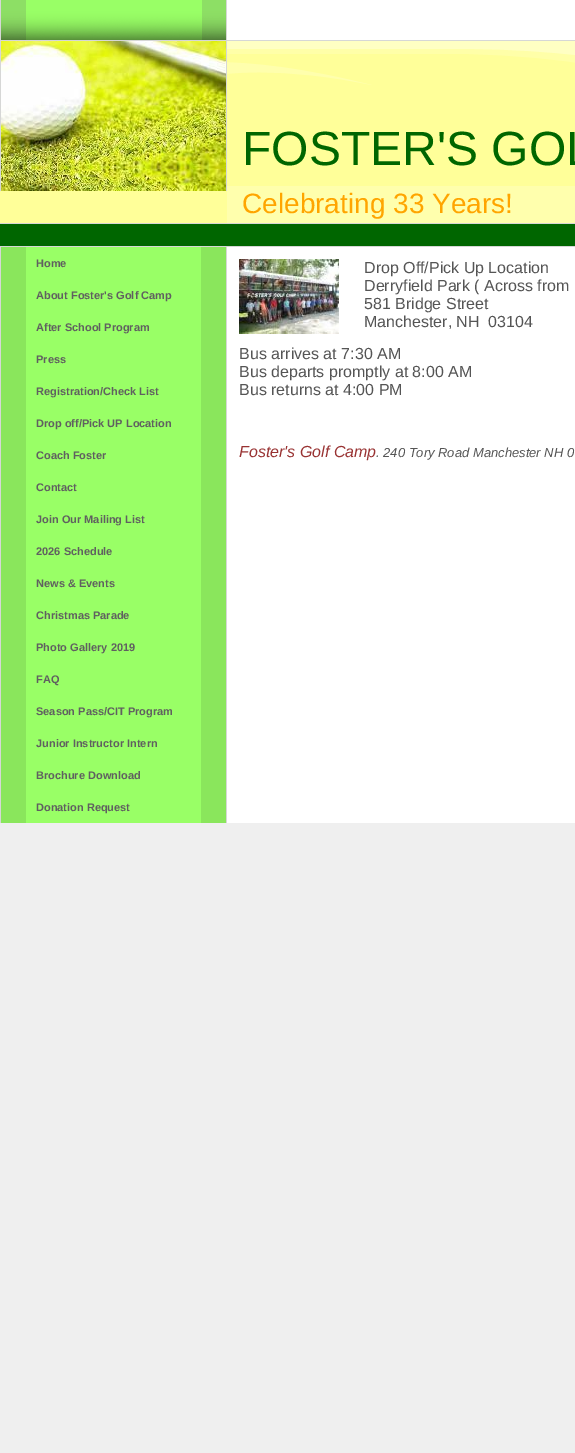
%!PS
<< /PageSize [575 1453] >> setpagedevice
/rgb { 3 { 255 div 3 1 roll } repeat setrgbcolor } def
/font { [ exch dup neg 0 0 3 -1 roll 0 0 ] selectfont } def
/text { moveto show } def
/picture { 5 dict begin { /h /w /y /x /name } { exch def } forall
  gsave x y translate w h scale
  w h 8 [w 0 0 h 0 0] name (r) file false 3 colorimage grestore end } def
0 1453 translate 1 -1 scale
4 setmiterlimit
239 239 239 rgb
0 0 575 1453 rectfill
255 255 255 rgb
227 0 348 40 rectfill
153 255 102 rgb
1 0 225 40 rectfill
(img_01.rgb) 1 0 225 40 picture
214 215 214 rgb
226 0 1 40 rectfill
0 0 1 40 rectfill
255 255 153 rgb
0 41 575 182 rectfill
214 215 214 rgb
0 40 575 1 rectfill
0 223 575 1 rectfill
(img_02.rgb) 1 41 225 150 picture
226 41 1 150 rectfill
0 41 1 150 rectfill
(img_03.rgb) 227 41 348 44 picture
255 255 173 rgb
227 186 348 37 rectfill
0 102 0 rgb
0 224 575 22 rectfill
214 215 214 rgb
0 246 575 1 rectfill
255 255 255 rgb
227 247 348 576 rectfill
153 255 102 rgb
26 247 175 576 rectfill
214 215 214 rgb
226 247 1 576 rectfill
0 247 1 576 rectfill
138 230 92 rgb
1 247 25 576 rectfill
201 247 25 576 rectfill
(img_04.rgb) 239 259 100 75 picture
/LiberationSans-Regular 48 font
0 102 0 rgb
(FOSTER'S GOL) 242 165 text
/LiberationSans-Regular 28 font
255 165 0 rgb
(Celebrating 33 Years!) 242 213 text
/LiberationSans-Bold 11 font
96 96 96 rgb
(Home) 36 267 text
(About Foster's Golf Camp) 36 299 text
(After School Program) 36 331 text
(Press) 36 363 text
(Registration/Check List) 36 395 text
(Drop off/Pick UP Location) 36 427 text
(Coach Foster) 36 459 text
(Contact) 36 491 text
(Join Our Mailing List) 36 523 text
(2026 Schedule) 36 555 text
(News & Events) 36 587 text
(Christmas Parade) 36 619 text
(Photo Gallery 2019) 36 651 text
(FAQ) 36 683 text
(Season Pass/CIT Program) 36 715 text
(Junior Instructor Intern) 36 747 text
(Brochure Download) 36 779 text
(Donation Request) 36 811 text
/LiberationSans-Regular 16 font
85 85 85 rgb
(Drop Off/Pick Up Location) 364 273 text
(Derryfield Park \( Across from) 364 291 text
(581 Bridge Street) 364 309 text
(Manchester, NH  03104) 364 327 text
(Bus arrives at 7:30 AM) 239 359 text
(Bus departs promptly at 8:00 AM) 239 377 text
(Bus returns at 4:00 PM) 239 395 text
/LiberationSans-Italic 16 font
153 51 51 rgb
(Foster's Golf Camp) 239 457 text
/LiberationSans-Italic 13 font
85 85 85 rgb
(. 240 Tory Road Manchester NH 0) 376 457 text
showpage
